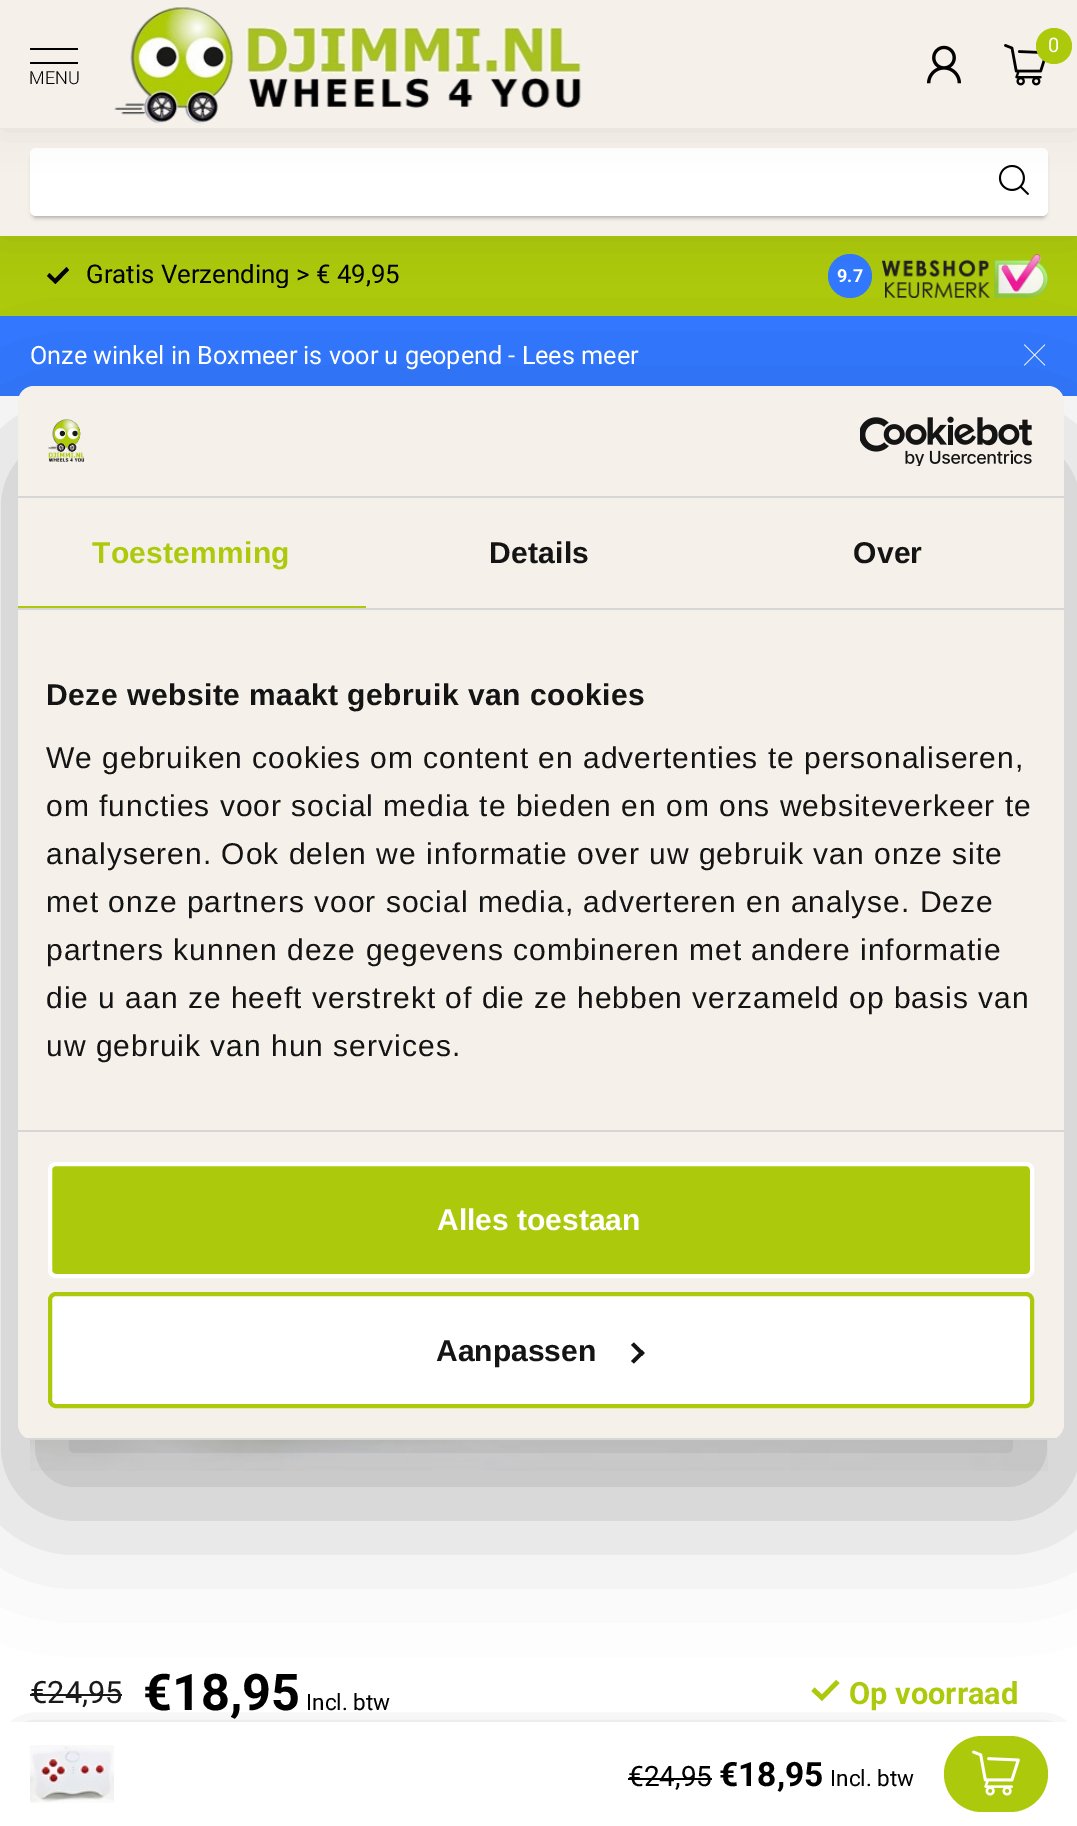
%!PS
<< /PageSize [1077 1826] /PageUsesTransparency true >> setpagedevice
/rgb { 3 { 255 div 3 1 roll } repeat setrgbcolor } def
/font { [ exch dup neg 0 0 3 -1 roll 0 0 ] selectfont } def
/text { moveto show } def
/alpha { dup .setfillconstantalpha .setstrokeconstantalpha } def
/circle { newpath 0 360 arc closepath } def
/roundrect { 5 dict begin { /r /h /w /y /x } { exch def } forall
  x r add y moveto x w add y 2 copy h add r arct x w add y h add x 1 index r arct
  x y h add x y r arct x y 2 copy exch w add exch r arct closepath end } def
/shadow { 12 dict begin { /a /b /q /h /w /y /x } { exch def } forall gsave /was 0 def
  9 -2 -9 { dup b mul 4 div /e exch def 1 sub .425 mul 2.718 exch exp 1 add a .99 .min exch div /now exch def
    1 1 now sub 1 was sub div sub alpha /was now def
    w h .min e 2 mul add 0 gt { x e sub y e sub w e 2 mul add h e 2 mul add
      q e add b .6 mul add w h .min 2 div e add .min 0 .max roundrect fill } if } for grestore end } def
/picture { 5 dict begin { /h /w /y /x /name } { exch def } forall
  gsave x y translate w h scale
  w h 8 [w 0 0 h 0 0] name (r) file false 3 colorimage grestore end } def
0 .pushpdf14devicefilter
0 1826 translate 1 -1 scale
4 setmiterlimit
255 255 255 rgb
0 0 1077 1826 rectfill
172 201 12 rgb
0 236 1077 80 rectfill
0 0 0 rgb
55.5 284 moveto -8.5 -8 rlineto 2.5 -3 rlineto 5.5 5.5 rlineto 11.5 -11.5 rlineto 2.5 3 rlineto closepath fill
50 120 255 rgb
850 276 22 circle fill
(img_05.rgb) 882 254 166 44 picture
0 0 0 rgb
0 128 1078 108 0 22 0.08 shadow
245 241 234 rgb
0 128 1077 108 rectfill
155 155 155 rgb
32 154 1014 64 4 2 0.75 shadow
255 255 255 rgb
30 148 1018 68 6 roundrect fill
(img_04.rgb) 998 165 31 30 picture
0 0 0 rgb
0 0 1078 128 0 20 0.07 shadow
245 241 234 rgb
0 0 1077 128 rectfill
(img_01.rgb) 927 45 34 39 picture
(img_02.rgb) 1004 44 42 42 picture
172 201 12 rgb
1054 46 18 circle fill
0 0 0 rgb
30 48 48 2 rectfill
30 62 48 2 rectfill
(img_03.rgb) 114 6 468 118 picture
50 120 255 rgb
0 316 1077 80 rectfill
(img_06.rgb) 1023 344 23 22 picture
(img_09.rgb) 30 1439 1018 32 picture
26 26 26 rgb
30 1694 92 2 rectfill
172 201 12 rgb
822 1701 moveto -10.5 -10 rlineto 3 -3.5 rlineto 7.5 7 rlineto 14 -14.5 rlineto 3.5 3 rlineto closepath fill
0 0 0 rgb
18 450 1046 1054 16 68 0.3 shadow
245 241 234 rgb
18 386 1046 1054 16 roundrect fill
214 214 214 rgb
18 496 1046 2 rectfill
(img_07.rgb) 48 419 37 43 picture
(img_08.rgb) 860 416 173 50 picture
18 608 1046 2 rectfill
172 201 12 rgb
18 606 348 2 rectfill
214 214 214 rgb
18 1130 1046 2 rectfill
gsave
18 386 1046 1054 16 roundrect clip newpath
18 1438 1046 2 rectfill
grestore
172 201 12 rgb
50 1164 982 112 6 roundrect gsave fill grestore
255 255 255 rgb
4 setlinewidth
stroke
50 1294 982 112 6 roundrect gsave fill grestore
172 201 12 rgb
stroke
20 20 20 rgb
634 1342.5 moveto 10.5 10.5 rlineto -2.5 3 rlineto -11 -11 rlineto closepath fill
642 1350 moveto 2.5 3 rlineto -10.5 10.5 rlineto -3 -2.5 rlineto closepath fill
0 0 0 rgb
28 1746 1022 48 0 15 1 shadow
255 255 255 rgb
0 1722 1077 104 rectfill
(img_10.rgb) 30 1745 84 58 picture
0 0 0 rgb
628 1778 84 2 rectfill
172 201 12 rgb
944 1736 104 76 38 roundrect fill
(img_11.rgb) 972 1750 48 46 picture
/Roboto-Regular 20 font
255 255 255 rgb
(0) 1048 52 text
/Roboto-Light 18 font
0 0 0 rgb
(MENU) 29 84 text
gsave
86 264 314 24 rectclip
/Roboto-Regular 25.75 font
(Gratis Verzending > € 49,95) 86 283 text
grestore
/Roboto-Bold 18 font
255 255 255 rgb
(9.7) 837 282 text
/Roboto-Regular 25.2 font
(Onze winkel in Boxmeer is voor u geopend - Lees meer) 30 364 text
/LiberationSans-Bold 30 font
172 201 12 rgb
92 563 moveto 0.25 0 (Toestemming) ashow
20 20 20 rgb
489 563 moveto 0.25 0 (Details) ashow
853 563 moveto 0.25 0 (Over) ashow
46 705 moveto 0.5 0 (Deze website maakt gebruik van cookies) ashow
/LiberationSans-Regular 30 font
46 768 moveto 1 0 (We gebruiken cookies om content en advertenties te personaliseren,) ashow
46 816 moveto 1 0 (om functies voor social media te bieden en om ons websiteverkeer te) ashow
46 864 moveto 1 0 (analyseren. Ook delen we informatie over uw gebruik van onze site) ashow
46 912 moveto 1 0 (met onze partners voor social media, adverteren en analyse. Deze) ashow
46 960 moveto 1 0 (partners kunnen deze gegevens combineren met andere informatie) ashow
46 1008 moveto 1 0 (die u aan ze heeft verstrekt of die ze hebben verzameld op basis van) ashow
46 1056 moveto 1 0 (uw gebruik van hun services.) ashow
/LiberationSans-Bold 30 font
255 255 255 rgb
(Alles toestaan) 437 1230 text
20 20 20 rgb
(Aanpassen) 436 1361 text
/Roboto-Regular 30.75 font
26 26 26 rgb
(€24,95) 30 1703 text
/Roboto-Bold 50.5 font
0 0 0 rgb
(€18,95) 143 1710 text
/Roboto-Regular 22.5 font
(Incl. btw) 306 1710 text
/Roboto-Bold 30.75 font
172 201 12 rgb
(Op voorraad) 849 1704 text
/Roboto-Regular 28 font
0 0 0 rgb
(€24,95) 628 1786 text
/Roboto-Bold 33.5 font
(€18,95) 719 1786 text
/Roboto-Regular 22.5 font
(Incl. btw) 830 1786 text
.poppdf14devicefilter showpage
